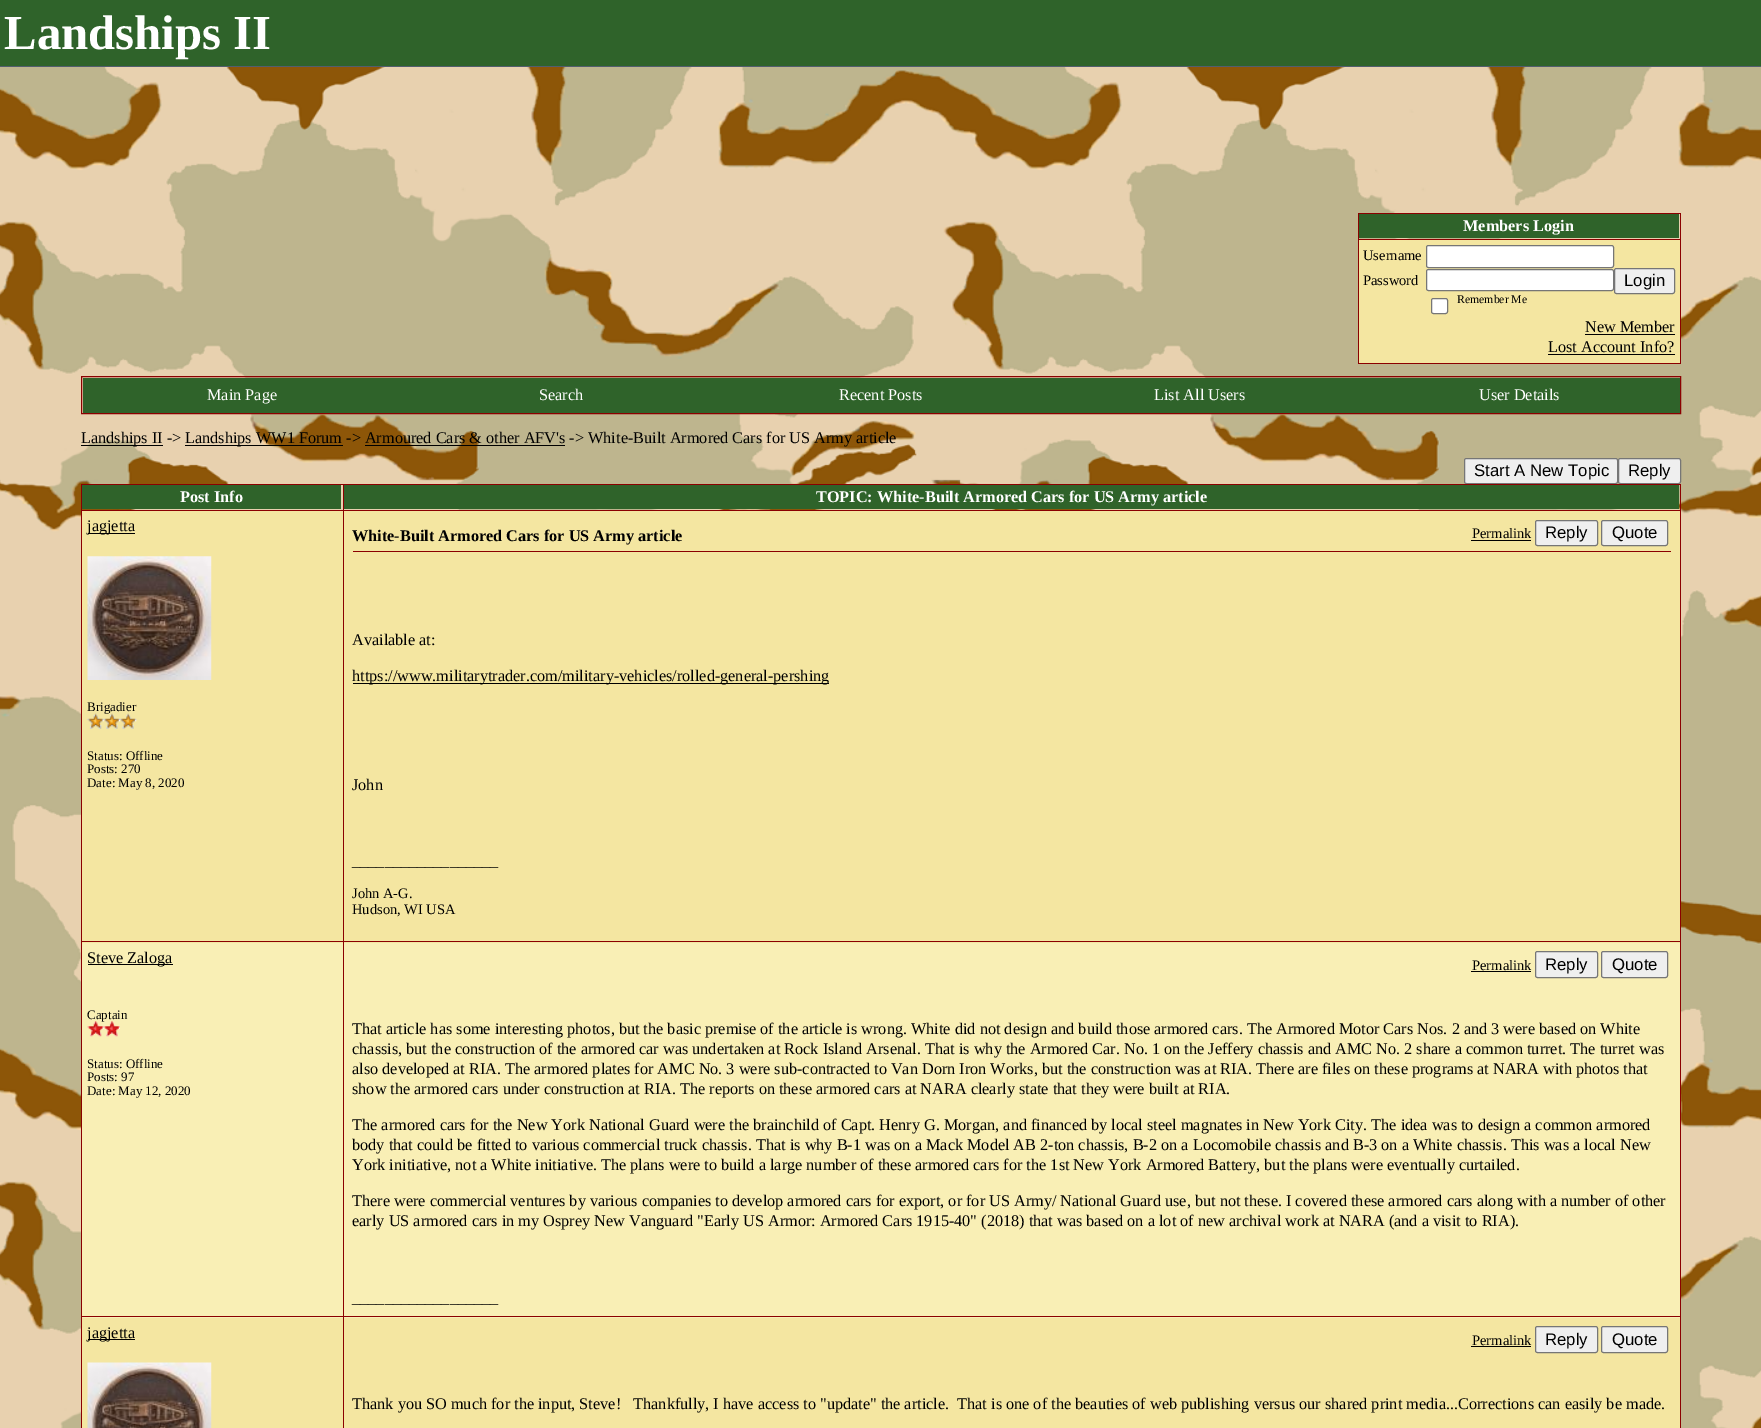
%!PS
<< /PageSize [1761 1428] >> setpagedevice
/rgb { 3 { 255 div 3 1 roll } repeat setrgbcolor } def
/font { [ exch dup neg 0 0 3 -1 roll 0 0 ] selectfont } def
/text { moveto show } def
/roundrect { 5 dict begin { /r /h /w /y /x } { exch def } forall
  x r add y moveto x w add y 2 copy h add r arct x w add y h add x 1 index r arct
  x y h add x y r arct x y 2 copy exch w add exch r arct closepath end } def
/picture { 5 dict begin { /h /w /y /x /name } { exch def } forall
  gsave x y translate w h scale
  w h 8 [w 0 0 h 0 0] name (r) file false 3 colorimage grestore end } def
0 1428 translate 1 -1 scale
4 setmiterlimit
255 255 255 rgb
0 0 1761 1428 rectfill
(img_01.rgb) 0 67 1761 1361 picture
47 99 42 rgb
0 0 1761 66 rectfill
82 94 110 rgb
0 66 1761 1 rectfill
139 0 0 rgb
1358 213 323 1 rectfill
1680 213 1 151 rectfill
1358 363 323 1 rectfill
1358 213 1 151 rectfill
47 99 42 rgb
1359 214 320 24 rectfill
139 0 0 rgb
1358 239 323 1 rectfill
244 230 161 rgb
1359 240 321 123 rectfill
255 255 255 rgb
1426.5 245.5 187 22 2 roundrect gsave fill grestore
118 118 118 rgb
stroke
255 255 255 rgb
1426.5 269.5 187 21 2 roundrect gsave fill grestore
118 118 118 rgb
stroke
239 239 239 rgb
1614.5 268.5 60 25 2 roundrect gsave fill grestore
118 118 118 rgb
stroke
255 255 255 rgb
1431.5 298.5 16 15 2 roundrect gsave fill grestore
118 118 118 rgb
stroke
0 0 0 rgb
1585 334 90 1 rectfill
1548 354 127 1 rectfill
139 0 0 rgb
81.5 376.5 1599 37 rectstroke
47 99 42 rgb
83 378 1597 35 rectfill
0 0 0 rgb
81 445 82 1 rectfill
185 445 158 1 rectfill
365 445 200 1 rectfill
239 239 239 rgb
1464.5 458.5 153 25 2 roundrect gsave fill grestore
118 118 118 rgb
stroke
239 239 239 rgb
1618.5 458.5 62 25 2 roundrect gsave fill grestore
118 118 118 rgb
stroke
139 0 0 rgb
81 484 1600 1 rectfill
1680 484 1 944 rectfill
81 484 1 944 rectfill
47 99 42 rgb
82 485 259 24 rectfill
139 0 0 rgb
343 510 1338 1 rectfill
244 230 161 rgb
82 511 261 432 rectfill
344 511 1336 432 rectfill
139 0 0 rgb
343 941 1338 1 rectfill
249 239 181 rgb
82 943 261 375 rectfill
344 943 1336 375 rectfill
139 0 0 rgb
343 1316 1338 1 rectfill
343 1316 1 112 rectfill
81 1316 263 1 rectfill
343 941 1 377 rectfill
81 941 263 1 rectfill
343 510 1 433 rectfill
81 510 263 1 rectfill
343 484 1 27 rectfill
47 99 42 rgb
344 485 1335 24 rectfill
0 0 0 rgb
88 533 47 1 rectfill
(img_02.rgb) 87 556 125 124 picture
1471 540 60 1 rectfill
239 239 239 rgb
1535.5 520.5 62 25 2 roundrect gsave fill grestore
118 118 118 rgb
stroke
239 239 239 rgb
1601.5 520.5 66 25 2 roundrect gsave fill grestore
118 118 118 rgb
stroke
139 0 0 rgb
353 551 1318 1 rectfill
0 0 0 rgb
353 683 476 1 rectfill
88 964 85 1 rectfill
1471 971 60 1 rectfill
239 239 239 rgb
1535.5 951.5 62 26 2 roundrect gsave fill grestore
118 118 118 rgb
stroke
239 239 239 rgb
1601.5 951.5 66 26 2 roundrect gsave fill grestore
118 118 118 rgb
stroke
244 230 161 rgb
82 1318 261 110 rectfill
0 0 0 rgb
88 1339 47 1 rectfill
(img_08.rgb) 87 1362 125 66 picture
244 230 161 rgb
344 1318 1336 110 rectfill
0 0 0 rgb
1471 1346 60 1 rectfill
239 239 239 rgb
1535.5 1326.5 62 26 2 roundrect gsave fill grestore
118 118 118 rgb
stroke
239 239 239 rgb
1601.5 1326.5 66 26 2 roundrect gsave fill grestore
118 118 118 rgb
stroke
/LiberationSerif-Bold 48.75 font
255 255 255 rgb
(Landships II) 4 49 text
/LiberationSerif-Bold 16.25 font
(Members Login) 1463 231 text
/LiberationSerif-Regular 14.5 font
0 0 0 rgb
(Username) 1363 260 text
(Password) 1363 285 text
/LiberationSans-Regular 16.75 font
(Login) 1624 286 text
/LiberationSerif-Regular 11.75 font
(Remember Me) 1457 303 text
/LiberationSerif-Regular 16.25 font
(New Member) 1585 332 text
(Lost Account Info?) 1548 352 text
255 255 255 rgb
(Main Page) 207 400 text
(Search) 539 400 text
(Recent Posts) 839 400 text
(List All Users) 1154 400 text
(User Details) 1479 400 text
0 0 0 rgb
(Landships II ->) 81 443 text
(Landships WW1 Forum -> Armoured Cars & other AFV's -> White-Built Armored Cars for US Army article) 185 443 text
/LiberationSans-Regular 16.75 font
(Start A New Topic) 1474 476 text
(Reply) 1628 476 text
/LiberationSerif-Bold 16.25 font
255 255 255 rgb
(Post Info) 180 502 text
(TOPIC: White-Built Armored Cars for US Army article) 816 502 text
/LiberationSerif-Regular 16.25 font
0 0 0 rgb
(jagjetta) 87 531 text
/LiberationSerif-Regular 13 font
(Brigadier) 87 711 text
(img_03.rgb) 87 713 17 16 picture
(img_04.rgb) 104 713 16 16 picture
(img_05.rgb) 120 713 17 16 picture
(Status: Offline) 87 760 text
(Posts: 270) 87 773 text
(Date: May 8, 2020) 87 787 text
/LiberationSerif-Bold 16.25 font
(White-Built Armored Cars for US Army article) 352 541 text
/LiberationSerif-Regular 14.5 font
(Permalink) 1472 538 text
/LiberationSans-Regular 16.75 font
(Reply) 1545 538 text
(Quote) 1612 538 text
/LiberationSerif-Regular 16.25 font
(Available at:) 352 645 text
(https://www.militarytrader.com/military-vehicles/rolled-general-pershing) 352 681 text
(John) 352 790 text
(__________________) 352 866 text
/LiberationSerif-Regular 14.5 font
(John A-G.) 352 898 text
(Hudson, WI USA) 352 914 text
/LiberationSerif-Regular 16.25 font
(Steve Zaloga) 87 963 text
/LiberationSerif-Regular 13 font
(Captain) 87 1019 text
(img_06.rgb) 87 1021 17 16 picture
(img_07.rgb) 103 1021 17 16 picture
(Status: Offline) 87 1068 text
(Posts: 97) 87 1081 text
(Date: May 12, 2020) 87 1095 text
/LiberationSerif-Regular 14.5 font
(Permalink) 1472 970 text
/LiberationSans-Regular 16.75 font
(Reply) 1545 970 text
(Quote) 1612 970 text
/LiberationSerif-Regular 16.25 font
(That article has some interesting photos, but the basic premise of the article is wrong. White did not design and build those armored cars. The Armored Motor Cars Nos. 2 and 3 were based on White) 352 1034 text
(chassis, but the construction of the armored car was undertaken at Rock Island Arsenal. That is why the Armored Car. No. 1 on the Jeffery chassis and AMC No. 2 share a common turret. The turret was) 352 1054 text
(also developed at RIA. The armored plates for AMC No. 3 were sub-contracted to Van Dorn Iron Works, but the construction was at RIA. There are files on these programs at NARA with photos that) 352 1074 text
(show the armored cars under construction at RIA. The reports on these armored cars at NARA clearly state that they were built at RIA.) 352 1094 text
(The armored cars for the New York National Guard were the brainchild of Capt. Henry G. Morgan, and financed by local steel magnates in New York City. The idea was to design a common armored) 352 1130 text
(body that could be fitted to various commercial truck chassis. That is why B-1 was on a Mack Model AB 2-ton chassis, B-2 on a Locomobile chassis and B-3 on a White chassis. This was a local New) 352 1150 text
(York initiative, not a White initiative. The plans were to build a large number of these armored cars for the 1st New York Armored Battery, but the plans were eventually curtailed.) 352 1170 text
(There were commercial ventures by various companies to develop armored cars for export, or for US Army/ National Guard use, but not these. I covered these armored cars along with a number of other) 352 1206 text
(early US armored cars in my Osprey New Vanguard "Early US Armor: Armored Cars 1915-40" \(2018\) that was based on a lot of new archival work at NARA \(and a visit to RIA\).) 352 1226 text
(__________________) 352 1303 text
(jagjetta) 87 1338 text
/LiberationSerif-Regular 14.5 font
(Permalink) 1472 1345 text
/LiberationSans-Regular 16.75 font
(Reply) 1545 1345 text
(Quote) 1612 1345 text
/LiberationSerif-Regular 16.25 font
(Thank you SO much for the input, Steve!   Thankfully, I have access to "update" the article.  That is one of the beauties of web publishing versus our shared print media...Corrections can easily be made.) 352 1409 text
showpage
